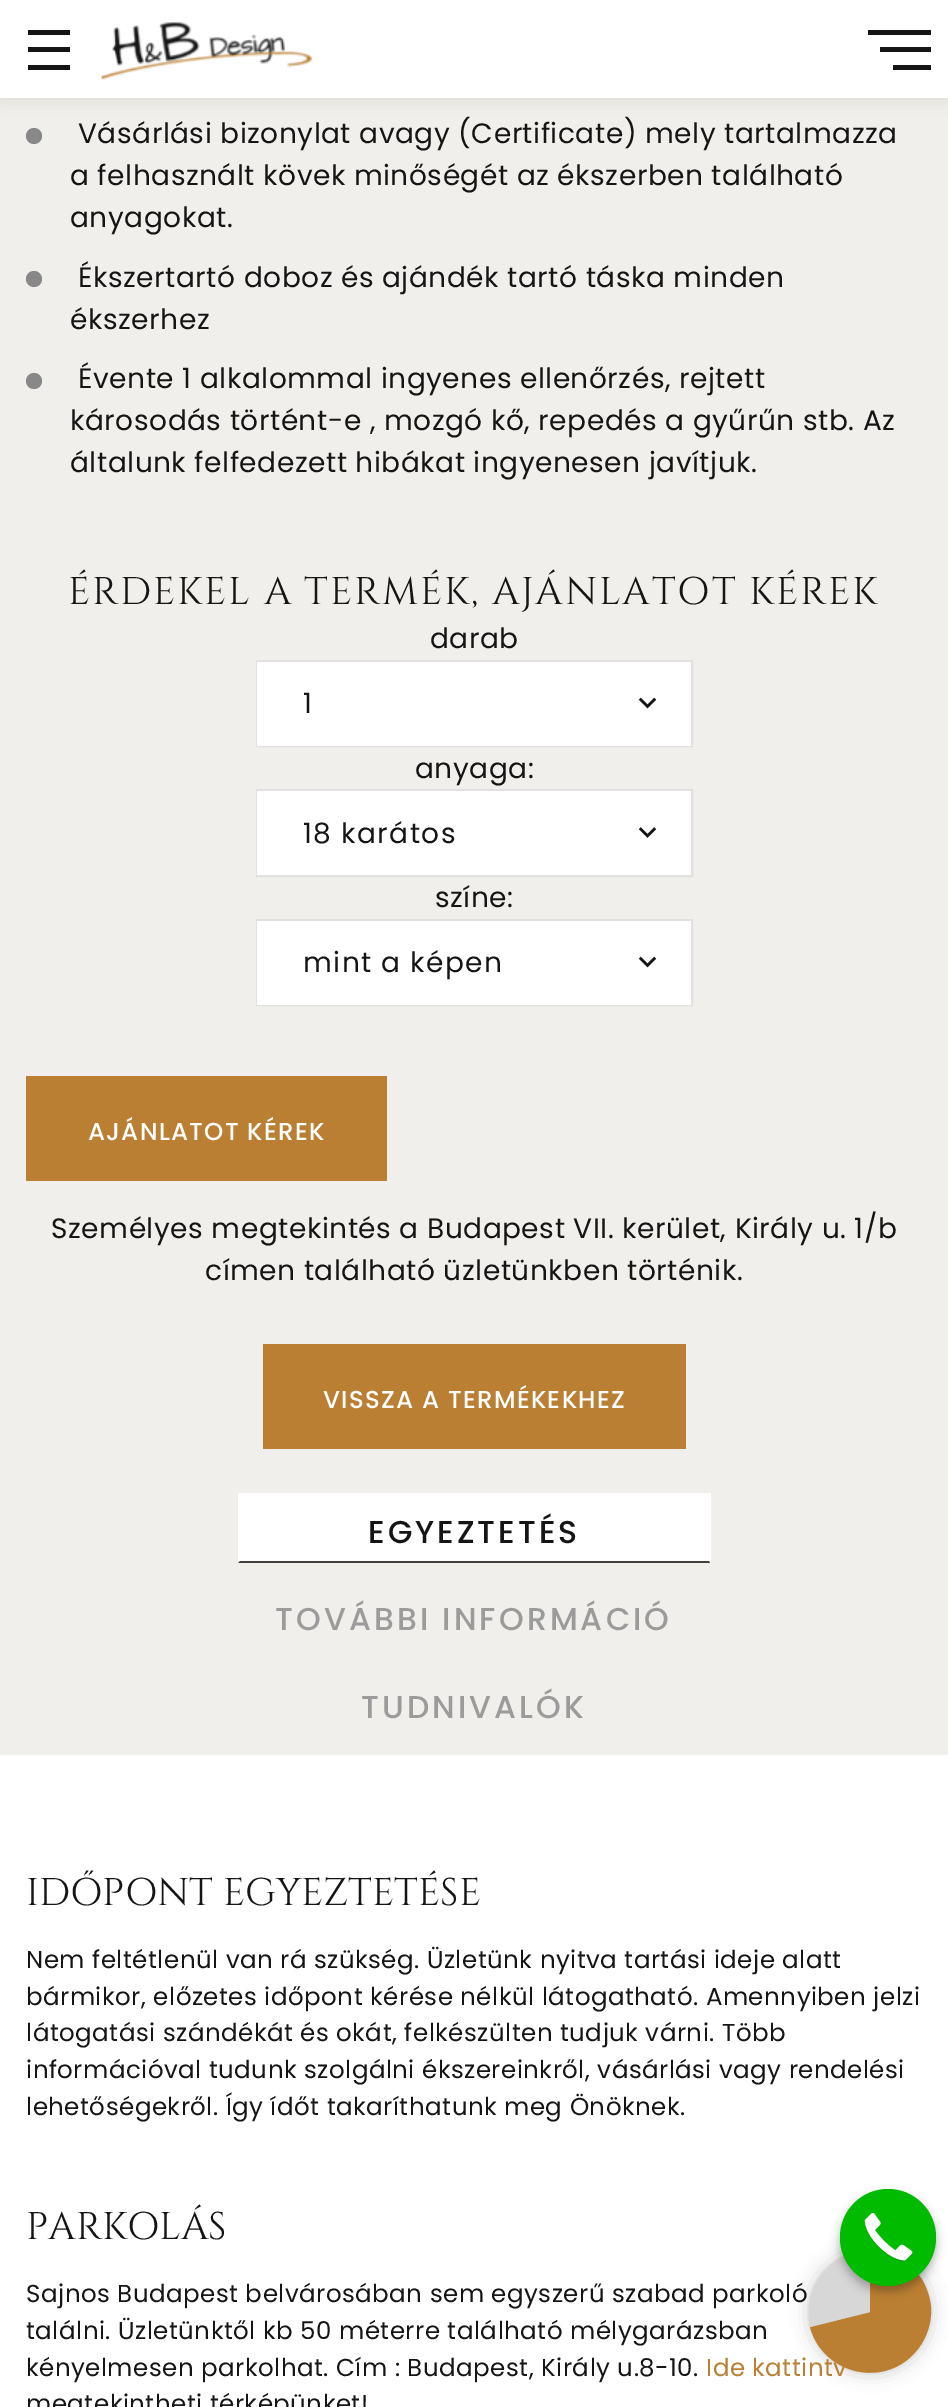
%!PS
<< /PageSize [948 2407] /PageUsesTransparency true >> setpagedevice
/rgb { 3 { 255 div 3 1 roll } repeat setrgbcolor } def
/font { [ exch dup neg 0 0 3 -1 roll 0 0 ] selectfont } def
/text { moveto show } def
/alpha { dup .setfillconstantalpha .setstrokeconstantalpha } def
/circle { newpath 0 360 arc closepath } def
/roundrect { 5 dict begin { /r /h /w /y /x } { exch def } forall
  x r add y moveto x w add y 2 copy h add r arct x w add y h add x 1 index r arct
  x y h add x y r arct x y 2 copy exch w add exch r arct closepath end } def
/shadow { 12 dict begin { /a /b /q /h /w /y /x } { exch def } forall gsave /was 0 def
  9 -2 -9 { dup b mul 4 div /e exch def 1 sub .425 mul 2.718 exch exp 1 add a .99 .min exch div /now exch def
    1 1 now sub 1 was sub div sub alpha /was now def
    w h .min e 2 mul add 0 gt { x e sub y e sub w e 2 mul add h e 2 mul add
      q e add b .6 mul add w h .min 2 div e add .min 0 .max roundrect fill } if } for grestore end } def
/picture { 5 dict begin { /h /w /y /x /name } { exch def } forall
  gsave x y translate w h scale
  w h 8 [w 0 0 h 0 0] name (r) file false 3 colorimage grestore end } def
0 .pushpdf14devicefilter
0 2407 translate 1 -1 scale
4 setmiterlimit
241 239 235 rgb
0 0 948 2407 rectfill
0 0 0 rgb
0 0 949 98 0 9 0.1 shadow
255 255 255 rgb
0 0 948 98 rectfill
21 21 21 rgb
28 47 42 5 rectfill
28 30 42 5 rectfill
28 65 42 5 rectfill
(img_01.rgb) 101 22 211 58 picture
868 30 63 5 rectfill
880 47 51 5 rectfill
893 65 38 5 rectfill
136 136 136 rgb
34 136 8 circle fill
34 279 8 circle fill
34 381 8 circle fill
225 225 225 rgb
2 setlinewidth
257 661 435 85 rectstroke
255 255 255 rgb
257 662 434 84 rectfill
(img_02.rgb) 638 697 19 12 picture
225 225 225 rgb
257 790 435 86 rectstroke
255 255 255 rgb
257 791 434 84 rectfill
(img_03.rgb) 638 827 19 11 picture
225 225 225 rgb
257 920 435 85 rectstroke
255 255 255 rgb
257 921 434 84 rectfill
(img_02.rgb) 638 956 19 12 picture
186 127 50 rgb
26 1076 361 105 rectfill
263 1344 423 105 rectfill
255 255 255 rgb
238 1493 473 70 rectfill
65 64 62 rgb
710 1563 moveto -472 0 rlineto 2 -2 rlineto 469 0 rlineto closepath fill
255 255 255 rgb
0 1755 948 652 rectfill
0 0 0 rgb
809 2251 122 122 61 9 0.2 shadow
186 127 50 rgb
870 2312 moveto 0 -62 rlineto 32 0 58 25 61 57 rcurveto 2 31 -20 60 -51 65 rcurveto -31 5 -62 -14 -70 -45 rcurveto closepath fill
215 215 215 rgb
870 2312 moveto -60 15 rlineto -9 -39 20 -77 60 -77 rcurveto closepath fill
0 0 0 rgb
840 2195 96 96 48 5 0.3 shadow
0 187 0 rgb
840 2189 96 97 48 roundrect fill
(img_04.rgb) 864 2212 49 50 picture
/Poppins-Regular 28 font
21 21 21 rgb
78 143 moveto 0.55 0 (Vásárlási bizonylat avagy \(Certificate\) mely tartalmazza) ashow
70 185 moveto 0.55 0 (a felhasznált kövek minőségét az ékszerben található) ashow
70 227 moveto 0.55 0 (anyagokat.) ashow
78 287 moveto 0.55 0 (Ékszertartó doboz és ajándék tartó táska minden) ashow
70 329 moveto 0.55 0 (ékszerhez) ashow
78 388 moveto 0.55 0 (Évente 1 alkalommal ingyenes ellenőrzés, rejtett) ashow
70 430 moveto 0.55 0 (károsodás történt-e , mozgó kő, repedés a gyűrűn stb. Az) ashow
70 472 moveto 0.55 0 (általunk felfedezett hibákat ingyenesen javítjuk.) ashow
/Cinzel-Regular 38.5 font
68 604 moveto 1.9 0 (ÉRDEKEL A TERMÉK, AJÁNLATOT KÉREK) ashow
/Poppins-Regular 28 font
430 648 moveto 0.55 0 (darab) ashow
303 713 moveto 1.4 0 (1) ashow
415 778 moveto 0.55 0 (anyaga:) ashow
303 843 moveto 1.4 0 (18 karátos) ashow
435 907 moveto 0.55 0 (színe:) ashow
303 972 moveto 1.4 0 (mint a képen) ashow
/Poppins-Medium 24.5 font
255 255 255 rgb
88 1140 moveto 1.25 0 (AJÁNLATOT KÉREK) ashow
/Poppins-Regular 28 font
21 21 21 rgb
51 1238 moveto 0.55 0 (Személyes megtekintés a Budapest VII. kerület, Király u. 1/b) ashow
205 1280 moveto 0.55 0 (címen található üzletünkben történik.) ashow
/Poppins-Medium 24.5 font
255 255 255 rgb
323 1408 moveto 1.25 0 (VISSZA A TERMÉKEKHEZ) ashow
/Poppins-Medium 31.5 font
21 21 21 rgb
368 1543 moveto 3.1 0 (EGYEZTETÉS) ashow
155 155 155 rgb
275 1630 moveto 3.1 0 (TOVÁBBI INFORMÁCIÓ) ashow
361 1718 moveto 3.1 0 (TUDNIVALÓK) ashow
/Cinzel-Regular 38.5 font
21 21 21 rgb
(IDŐPONT EGYEZTETÉSE) 26 1905 text
/Poppins-Regular 24.5 font
26 1968 moveto 0.5 0 (Nem feltétlenül van rá szükség. Üzletünk nyitva tartási ideje alatt) ashow
26 2005 moveto 0.5 0 (bármikor, előzetes időpont kérése nélkül látogatható. Amennyiben jelzi) ashow
26 2041 moveto 0.5 0 (látogatási szándékát és okát, felkészülten tudjuk várni. Több) ashow
26 2078 moveto 0.5 0 (információval tudunk szolgálni ékszereinkről, vásárlási vagy rendelési) ashow
26 2115 moveto 0.5 0 (lehetőségekről. Így ídőt takaríthatunk meg Önöknek.) ashow
/Cinzel-Regular 38.5 font
(PARKOLÁS) 26 2239 text
/Poppins-Regular 24.5 font
26 2302 moveto 0.5 0 (Sajnos Budapest belvárosában sem egyszerű szabad parkoló) ashow
26 2339 moveto 0.5 0 (találni. Üzletünktől kb 50 méterre található mélygarázsban) ashow
26 2376 moveto 0.5 0 (kényelmesen parkolhat. Cím : Budapest, Király u.8-10.) ashow
186 127 50 rgb
706 2376 moveto 0.5 0 (Ide kattintv) ashow
21 21 21 rgb
26 2412 moveto 0.5 0 (megtekintheti térképünket!) ashow
.poppdf14devicefilter showpage
